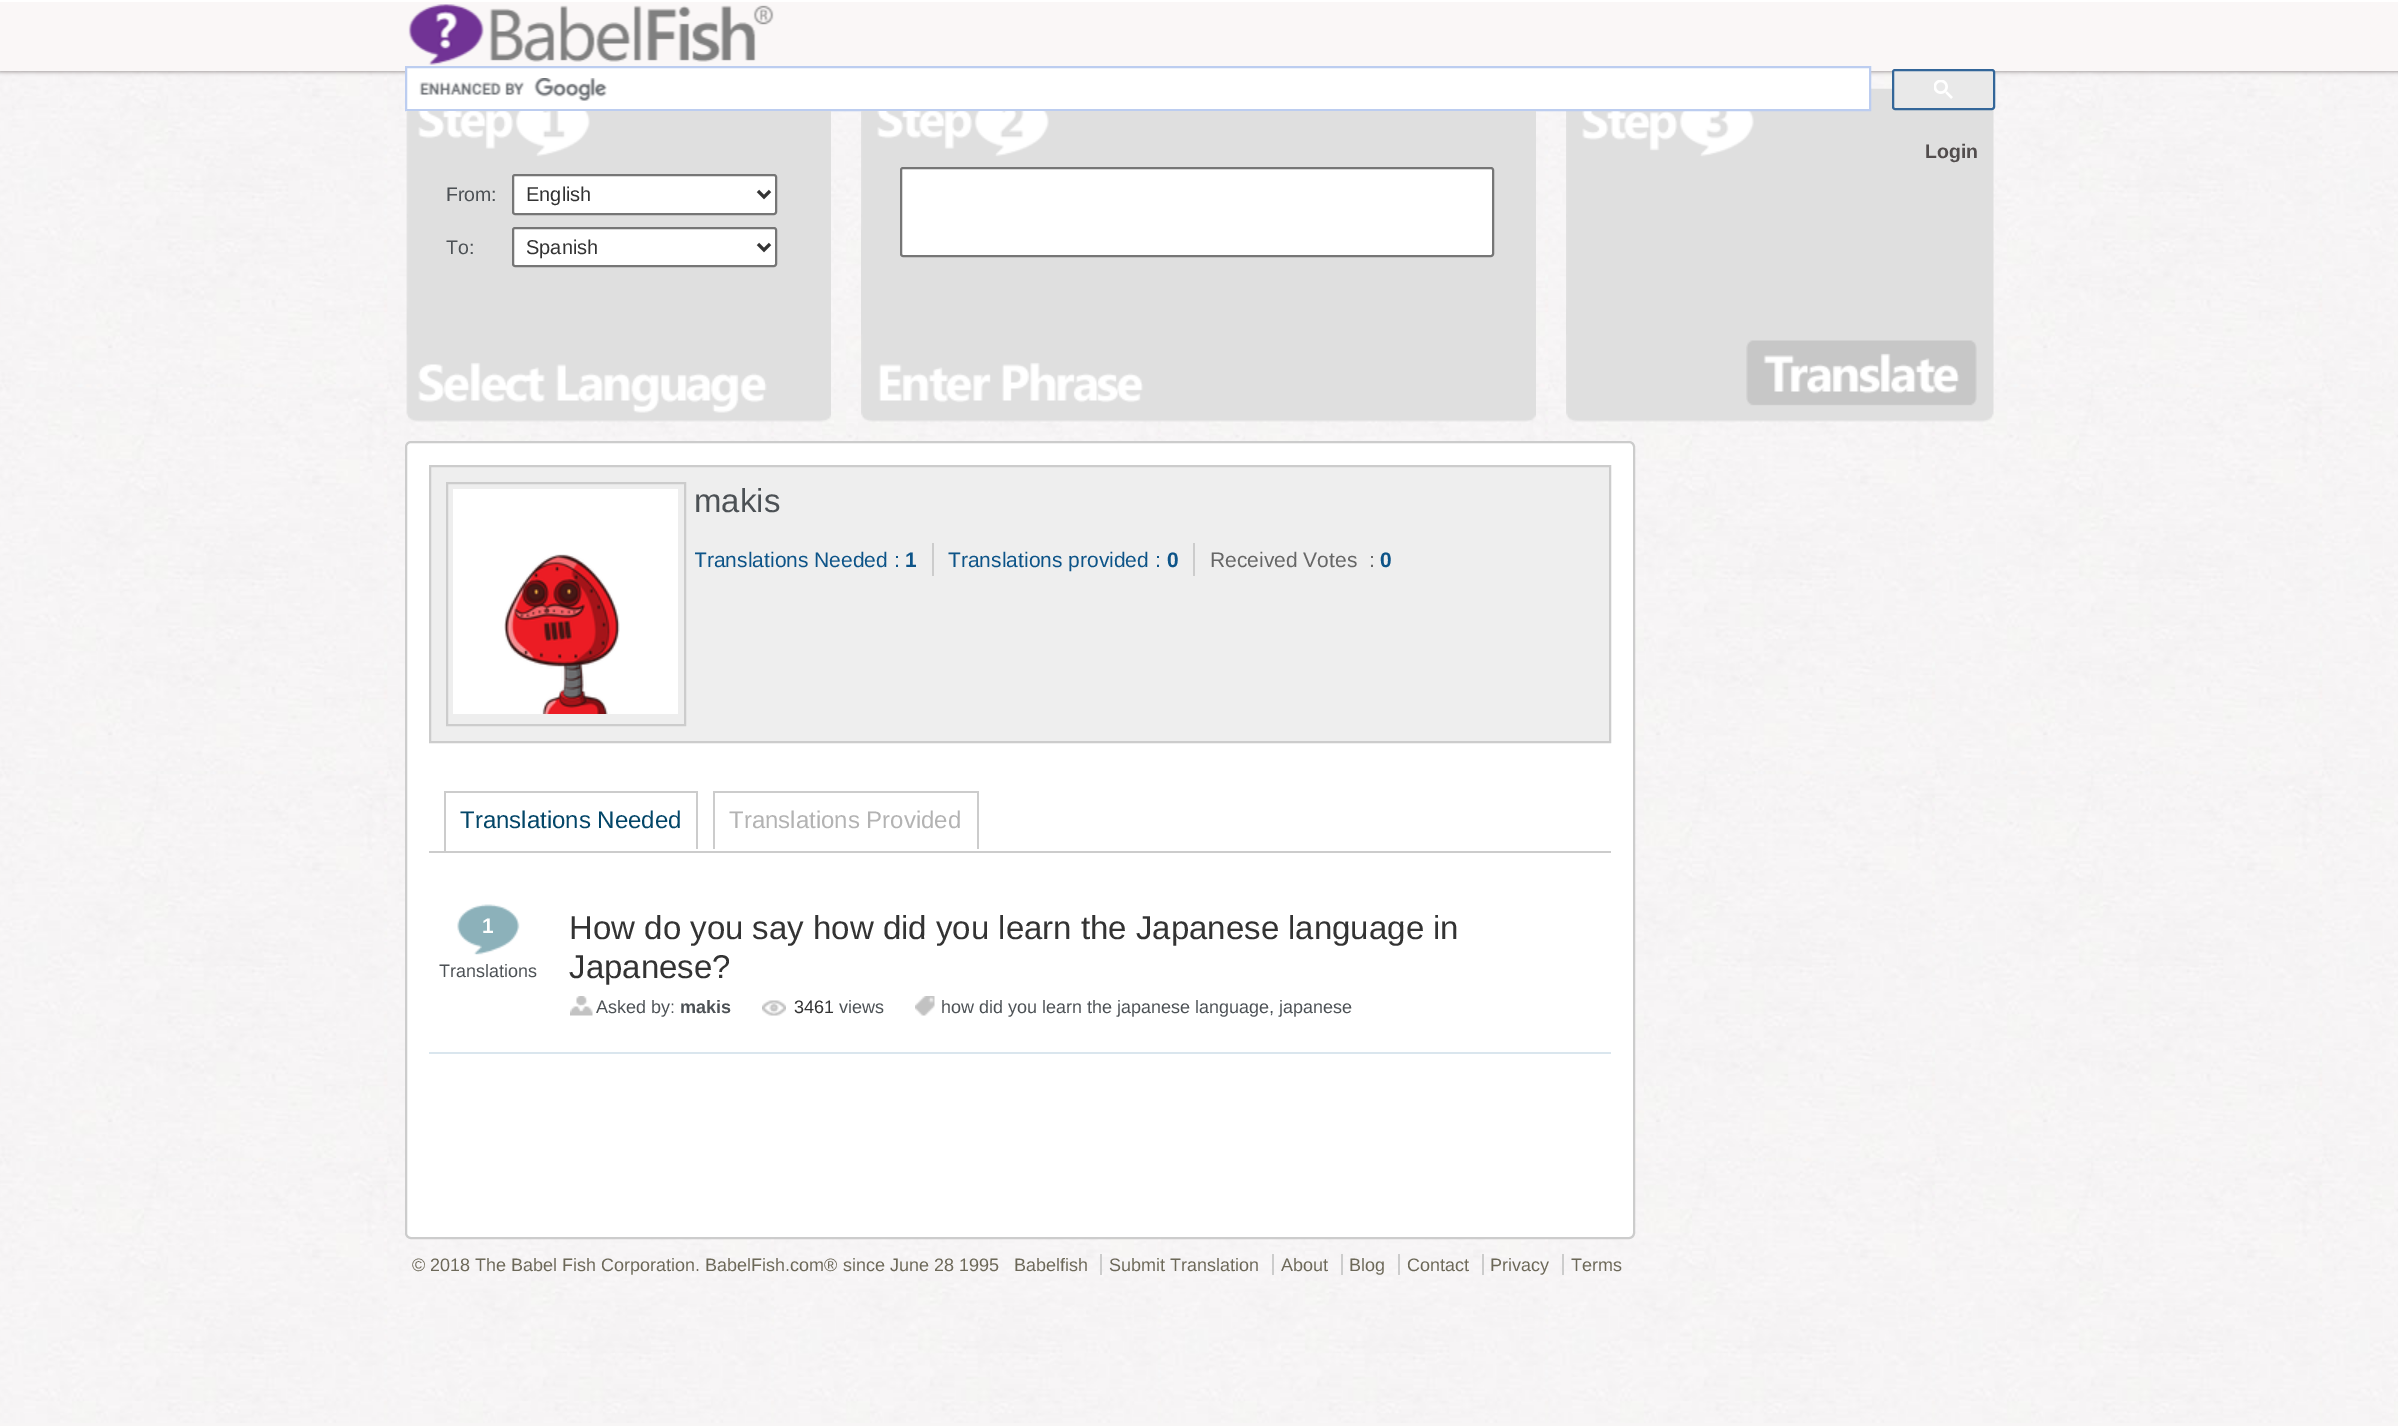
%!PS
<< /PageSize [2398 1426] /PageUsesTransparency true >> setpagedevice
/rgb { 3 { 255 div 3 1 roll } repeat setrgbcolor } def
/font { [ exch dup neg 0 0 3 -1 roll 0 0 ] selectfont } def
/text { moveto show } def
/alpha { dup .setfillconstantalpha .setstrokeconstantalpha } def
/roundrect { 5 dict begin { /r /h /w /y /x } { exch def } forall
  x r add y moveto x w add y 2 copy h add r arct x w add y h add x 1 index r arct
  x y h add x y r arct x y 2 copy exch w add exch r arct closepath end } def
/shadow { 12 dict begin { /a /b /q /h /w /y /x } { exch def } forall gsave /was 0 def
  9 -2 -9 { dup b mul 4 div /e exch def 1 sub .425 mul 2.718 exch exp 1 add a .99 .min exch div /now exch def
    1 1 now sub 1 was sub div sub alpha /was now def
    w h .min e 2 mul add 0 gt { x e sub y e sub w e 2 mul add h e 2 mul add
      q e add b .6 mul add w h .min 2 div e add .min 0 .max roundrect fill } if } for grestore end } def
/picture { 5 dict begin { /h /w /y /x /name } { exch def } forall
  gsave x y translate w h scale
  w h 8 [w 0 0 h 0 0] name (r) file false 3 colorimage grestore end } def
0 .pushpdf14devicefilter
0 1426 translate 1 -1 scale
4 setmiterlimit
247 245 245 rgb
0 0 2398 1426 rectfill
(img_01.rgb) 0 71 2398 1352 picture
34 25 25 rgb
0 2 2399 70 0 2 0.4 shadow
250 247 247 rgb
0 2 2398 69 rectfill
255 255 255 rgb
0 0 2398 2 rectfill
(img_02.rgb) 408 4 366 61 picture
(img_07.rgb) 1566 88 428 334 picture
406 67 moveto 1464 0 rlineto 0 43 rlineto -1464 0 rlineto closepath gsave fill grestore
188 205 240 rgb
2 setlinewidth
stroke
(img_03.rgb) 419 78 188 23 picture
233 233 233 rgb
1893 70 101 39 2 roundrect gsave fill grestore
51 102 153 rgb
stroke
(img_04.rgb) 1934 80 19 19 picture
(img_05.rgb) 406 111 425 311 picture
255 255 255 rgb
513 175 263 39 2 roundrect gsave fill grestore
118 118 118 rgb
stroke
51 51 51 rgb
3 setlinewidth
758 191 moveto 6 6 rlineto 6 -6 rlineto stroke
255 255 255 rgb
513 228 263 38 2 roundrect gsave fill grestore
118 118 118 rgb
2 setlinewidth
stroke
51 51 51 rgb
3 setlinewidth
758 244 moveto 6 6 rlineto 6 -6 rlineto stroke
(img_06.rgb) 861 111 675 311 picture
255 255 255 rgb
901 168 592 88 2 roundrect gsave fill grestore
118 118 118 rgb
2 setlinewidth
stroke
(img_08.rgb) 1746 340 231 66 picture
255 255 255 rgb
406 442 1228 796 5 roundrect gsave fill grestore
204 204 204 rgb
stroke
238 238 238 rgb
430 466 moveto 1180 0 rlineto 0 276 rlineto -1180 0 rlineto closepath gsave fill grestore
204 204 204 rgb
stroke
447 483 238 242 rectstroke
255 255 255 rgb
453 489 225 225 rectfill
(img_09.rgb) 504 554 116 160 picture
204 204 204 rgb
932 543 2 33 rectfill
1193 543 2 33 rectfill
429 851 1182 2 rectfill
444 791 254 2 rectfill
696 791 2 60 rectfill
255 255 255 rgb
696 849 2 2 rectfill
204 204 204 rgb
444 791 2 60 rectfill
713 791 265 2 rectfill
977 791 2 58 rectfill
713 791 2 58 rectfill
218 230 238 rgb
429 1052 1182 2 rectfill
(img_10.rgb) 457 904 63 51 picture
(img_11.rgb) 570 996 23 20 picture
(img_12.rgb) 762 1000 24 16 picture
(img_13.rgb) 915 996 20 20 picture
204 204 204 rgb
1100 1254 2 21 rectfill
1272 1254 2 21 rectfill
1341 1254 2 21 rectfill
1398 1254 2 21 rectfill
1482 1254 2 21 rectfill
1562 1254 2 21 rectfill
/LiberationSans-Bold 19.5 font
82 77 77 rgb
(Login) 1925 158 text
/LiberationSans-Regular 19.5 font
76 81 85 rgb
(From:) 446 201 text
/LiberationSans-Regular 20 font
51 51 51 rgb
(English) 526 201 text
/LiberationSans-Regular 19.5 font
76 81 85 rgb
(To:) 446 254 text
/LiberationSans-Regular 20 font
51 51 51 rgb
(Spanish) 526 254 text
/LiberationSans-Regular 33 font
76 81 85 rgb
(makis) 694 512 text
gsave
695 543 900 48 rectclip
/LiberationSans-Regular 21 font
13 84 136 rgb
(Translations Needed :) 694 567 text
grestore
/LiberationSans-Bold 21 font
13 84 136 rgb
(1) 905 567 text
/LiberationSans-Regular 21 font
(Translations provided :) 948 567 text
/LiberationSans-Bold 21 font
(0) 1167 567 text
/LiberationSans-Regular 21 font
102 102 102 rgb
(Received Votes  :) 1210 567 text
/LiberationSans-Bold 21 font
13 84 136 rgb
(0) 1380 567 text
/LiberationSans-Regular 24 font
3 70 104 rgb
(Translations Needed) 460 828 text
179 179 179 rgb
(Translations Provided) 729 828 text
/LiberationSans-Bold 21 font
255 255 255 rgb
(1) 482 933 text
/LiberationSans-Regular 18 font
76 81 85 rgb
(Translations) 439 977 text
/LiberationSans-Regular 33 font
51 51 51 rgb
(How do you say how did you learn the Japanese language in) 569 939 text
(Japanese?) 569 978 text
/LiberationSans-Regular 18 font
76 81 85 rgb
(Asked by:) 596 1013 text
/LiberationSans-Bold 18 font
(makis) 680 1013 text
/LiberationSans-Regular 18 font
51 51 51 rgb
(3461) 794 1013 text
76 81 85 rgb
(views) 839 1013 text
(how did you learn the japanese language, japanese) 941 1013 text
108 104 88 rgb
(© 2018 The Babel Fish Corporation. BabelFish.com® since June 28 1995) 412 1271 text
(Babelfish) 1014 1271 text
(Submit Translation) 1109 1271 text
(About) 1281 1271 text
(Blog) 1349 1271 text
(Contact) 1407 1271 text
(Privacy) 1490 1271 text
(Terms) 1571 1271 text
.poppdf14devicefilter showpage
